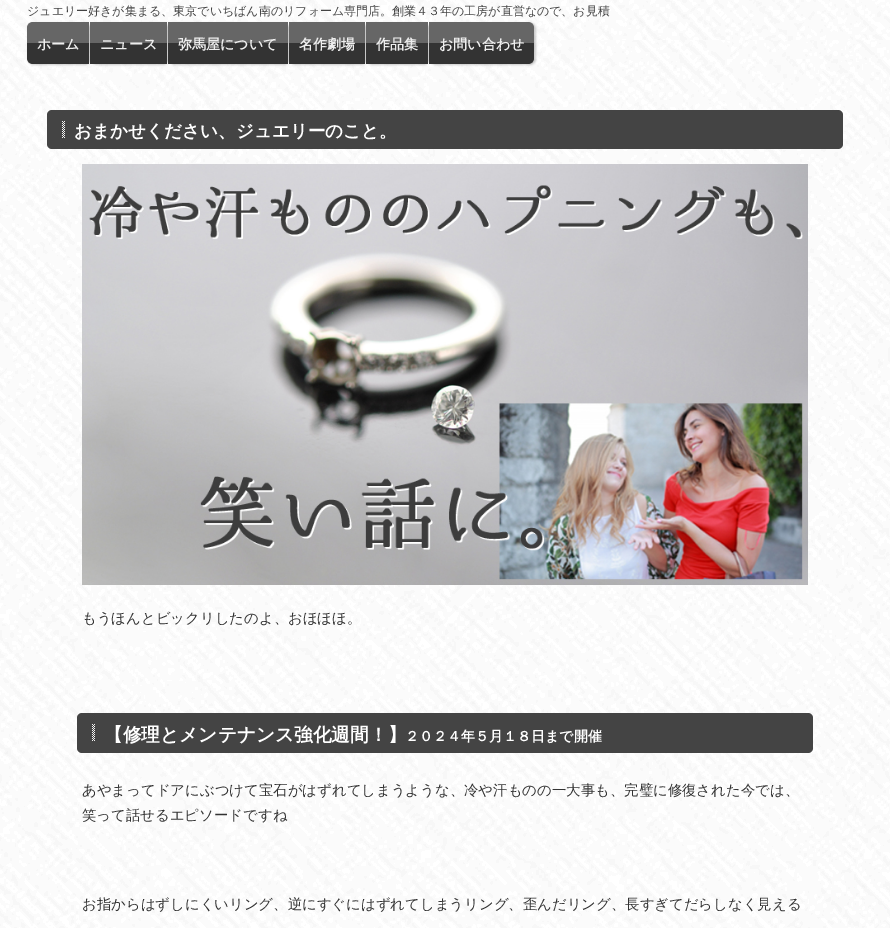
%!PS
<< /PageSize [890 928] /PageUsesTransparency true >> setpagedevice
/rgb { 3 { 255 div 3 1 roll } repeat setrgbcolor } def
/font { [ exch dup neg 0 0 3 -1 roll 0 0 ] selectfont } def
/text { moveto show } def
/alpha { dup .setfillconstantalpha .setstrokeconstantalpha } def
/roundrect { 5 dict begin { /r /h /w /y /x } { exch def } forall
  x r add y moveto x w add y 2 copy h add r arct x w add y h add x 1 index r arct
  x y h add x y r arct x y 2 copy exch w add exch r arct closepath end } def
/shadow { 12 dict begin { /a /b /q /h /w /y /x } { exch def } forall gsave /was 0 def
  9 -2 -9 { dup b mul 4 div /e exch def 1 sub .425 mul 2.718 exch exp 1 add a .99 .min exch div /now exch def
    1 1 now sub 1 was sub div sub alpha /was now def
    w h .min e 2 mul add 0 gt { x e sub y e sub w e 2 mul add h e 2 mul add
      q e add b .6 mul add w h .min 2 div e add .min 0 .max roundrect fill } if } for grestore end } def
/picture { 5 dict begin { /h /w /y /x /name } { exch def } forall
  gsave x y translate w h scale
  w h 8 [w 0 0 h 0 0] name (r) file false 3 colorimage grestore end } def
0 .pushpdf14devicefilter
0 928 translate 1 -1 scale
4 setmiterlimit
255 255 255 rgb
0 0 890 928 rectfill
(img_01.rgb) 0 0 890 928 picture
(img_02.rgb) 2 0 888 40 picture
0 0 0 rgb
28 23 63 42 6 1 0.2 shadow
102 102 102 rgb
33 22 moveto 56 0 rlineto 0 21 rlineto -62 0 rlineto 0 -15 rlineto 0 -3.5 2.5 -6 6 -6 rcurveto closepath fill
51 51 51 rgb
27 43 moveto 62 0 rlineto 0 21 rlineto -56 0 rlineto -3.5 0 -6 -2.5 -6 -6 rcurveto closepath fill
0 0 0 rgb
91 23 78 42 6 1 0.2 shadow
102 102 102 rgb
90 22 77 21 rectfill
51 51 51 rgb
90 43 77 21 rectfill
0 0 0 rgb
169 23 121 42 6 1 0.2 shadow
102 102 102 rgb
168 22 120 21 rectfill
51 51 51 rgb
168 43 120 21 rectfill
0 0 0 rgb
290 23 77 42 6 1 0.2 shadow
102 102 102 rgb
289 22 76 21 rectfill
51 51 51 rgb
289 43 76 21 rectfill
0 0 0 rgb
367 23 63 42 6 1 0.2 shadow
102 102 102 rgb
366 22 62 21 rectfill
51 51 51 rgb
366 43 62 21 rectfill
0 0 0 rgb
430 23 106 42 6 1 0.2 shadow
102 102 102 rgb
429 22 moveto 99 0 rlineto 3.5 0 6 2.5 6 6 rcurveto 0 15 rlineto -105 0 rlineto closepath fill
51 51 51 rgb
429 43 moveto 105 0 rlineto 0 15 rlineto 0 3.5 -2.5 6 -6 6 rcurveto -99 0 rlineto closepath fill
68 68 68 rgb
47 110 796 39 5 roundrect fill
(img_03.rgb) 62 121 3 17 picture
(img_04.rgb) 82 164 726 421 picture
77 713 736 40 5 roundrect fill
(img_03.rgb) 92 724 3 17 picture
/WenQuanYiZenHei-Medium 12 font
(ジュエリー好きが集まる、東京でいちばん南のリフォーム専門店。創業４３年の工房が直営なので、お見積) 27 15 text
/WenQuanYiZenHei-Bold 14 font
238 238 238 rgb
(ホーム) 37 49 text
(ニュース) 100 49 text
(弥馬屋について) 178 49 text
(名作劇場) 299 49 text
(作品集) 376 49 text
(お問い合わせ) 439 49 text
/WenQuanYiZenHei-Bold 17.6 font
255 255 255 rgb
(おまかせください、ジュエリーのこと。) 74 137 text
/WenQuanYiZenHei-Medium 14.4 font
51 51 51 rgb
(もうほんとビックリしたのよ、おほほほ。) 82 623 text
/WenQuanYiZenHei-Bold 18.7 font
255 255 255 rgb
(【修理とメンテナンス強化週間！】) 104 741 text
/WenQuanYiZenHei-Bold 14 font
(２０２４年５月１８日まで開催) 405 741 text
/WenQuanYiZenHei-Medium 14.4 font
51 51 51 rgb
(あやまってドアにぶつけて宝石がはずれてしまうような、冷や汗ものの一大事も、完璧に修復された今では、) 82 795 text
(笑って話せるエピソードですね) 82 820 text
(お指からはずしにくいリング、逆にすぐにはずれてしまうリング、歪んだリング、長すぎてだらしなく見える) 82 909 text
.poppdf14devicefilter showpage
